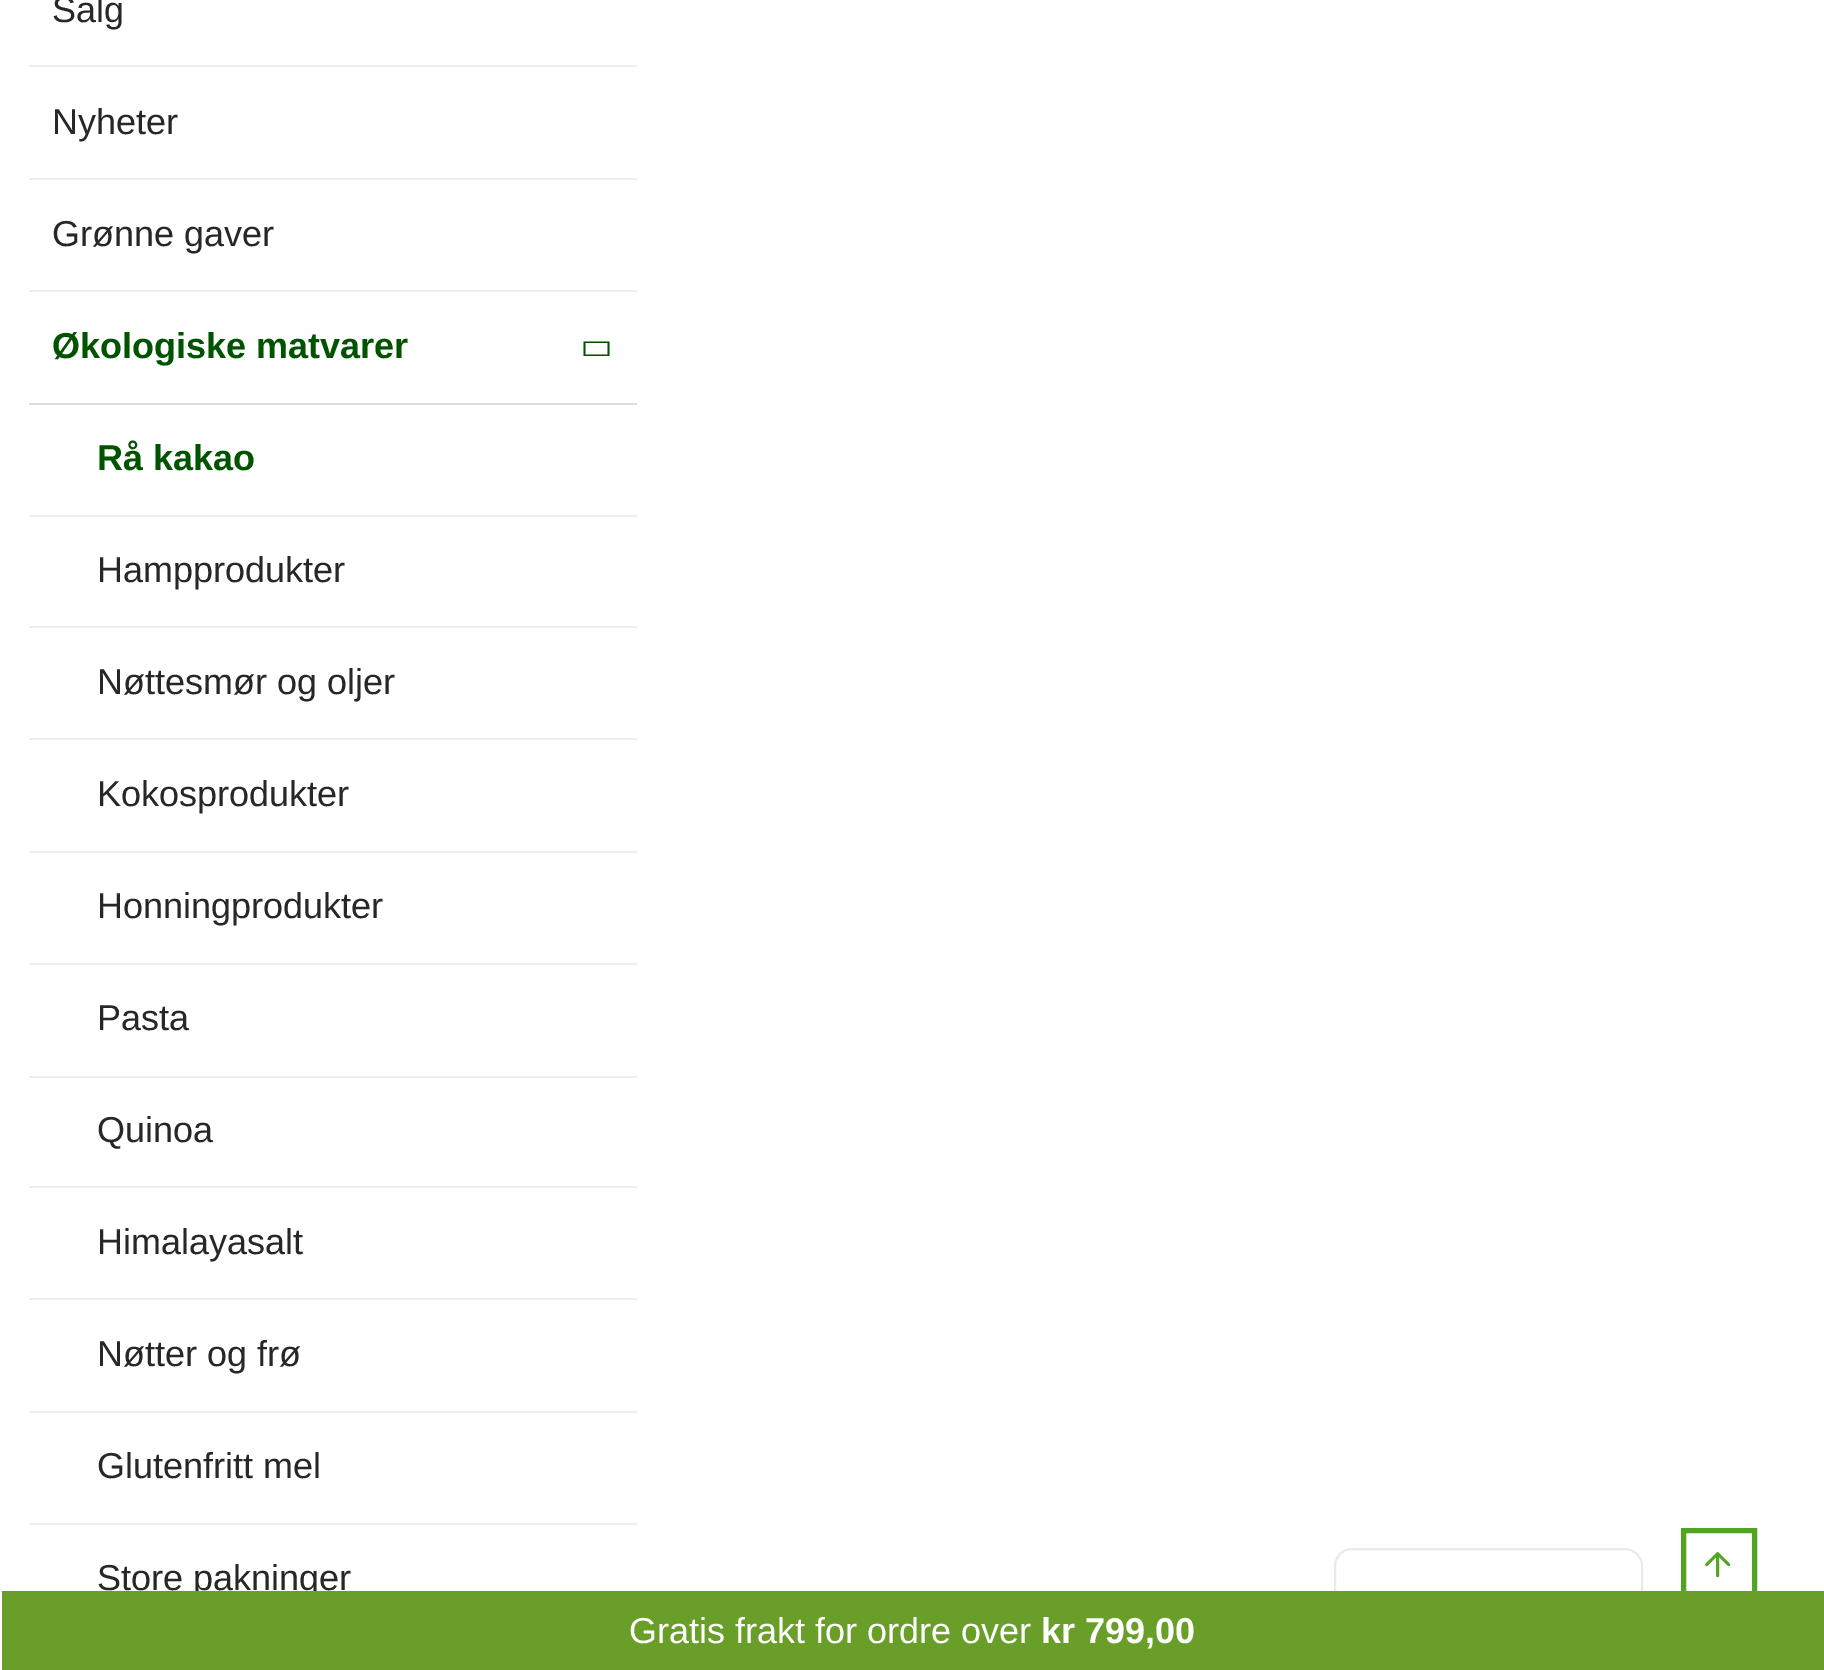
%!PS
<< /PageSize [1824 1670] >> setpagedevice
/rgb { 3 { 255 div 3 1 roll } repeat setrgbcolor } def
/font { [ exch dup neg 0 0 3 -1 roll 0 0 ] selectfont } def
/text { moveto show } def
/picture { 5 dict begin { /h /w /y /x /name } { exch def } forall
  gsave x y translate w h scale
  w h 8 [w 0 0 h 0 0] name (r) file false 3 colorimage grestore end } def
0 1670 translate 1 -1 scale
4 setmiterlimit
255 255 255 rgb
0 0 1824 1670 rectfill
238 238 238 rgb
29 65 608 2 rectfill
29 178 608 2 rectfill
29 290 608 2 rectfill
221 221 221 rgb
29 403 608 2 rectfill
0 84 0 rgb
583.5 341.5 moveto 26 0 rlineto 0 14.5 rlineto -26 0 rlineto closepath 585.5 343 moveto 0 11.5 rlineto 22 0 rlineto 0 -11.5 rlineto closepath fill
238 238 238 rgb
29 515 608 2 rectfill
29 626 608 2 rectfill
29 738 608 2 rectfill
29 851 608 2 rectfill
29 963 608 2 rectfill
29 1076 608 2 rectfill
29 1186 608 2 rectfill
29 1298 608 2 rectfill
29 1411 608 2 rectfill
29 1523 608 2 rectfill
231 235 238 rgb
2 setlinewidth
1352 1549 moveto 273 0 rlineto 9.5 0 17 7.5 17 17 rcurveto 0 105 rlineto -307 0 rlineto 0 -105 rlineto 0 -9.5 7.5 -17 17 -17 rcurveto closepath stroke
82 165 33 rgb
5 setlinewidth
1683.5 1530.5 71 71 rectstroke
(img_01.rgb) 1705 1552 26 26 picture
/LiberationSans-Regular 36 font
39 39 39 rgb
(Salg) 52 22 text
(Nyheter) 52 134 text
(Grønne gaver) 52 246 text
/LiberationSans-Bold 36 font
0 84 0 rgb
(Økologiske matvarer) 52 358 text
(Rå kakao) 97 470 text
/LiberationSans-Regular 36 font
39 39 39 rgb
(Hampprodukter) 97 582 text
(Nøttesmør og oljer) 97 694 text
(Kokosprodukter) 97 806 text
(Honningprodukter) 97 918 text
(Pasta) 97 1030 text
(Quinoa) 97 1142 text
(Himalayasalt) 97 1254 text
(Nøtter og frø) 97 1366 text
(Glutenfritt mel) 97 1478 text
(Store pakninger) 97 1590 text
105 158 40 rgb
2 1591 1822 79 rectfill
255 255 255 rgb
(Gratis frakt for ordre over) 629 1643 text
/LiberationSans-Bold 36 font
(kr 799,00) 1041 1643 text
showpage
